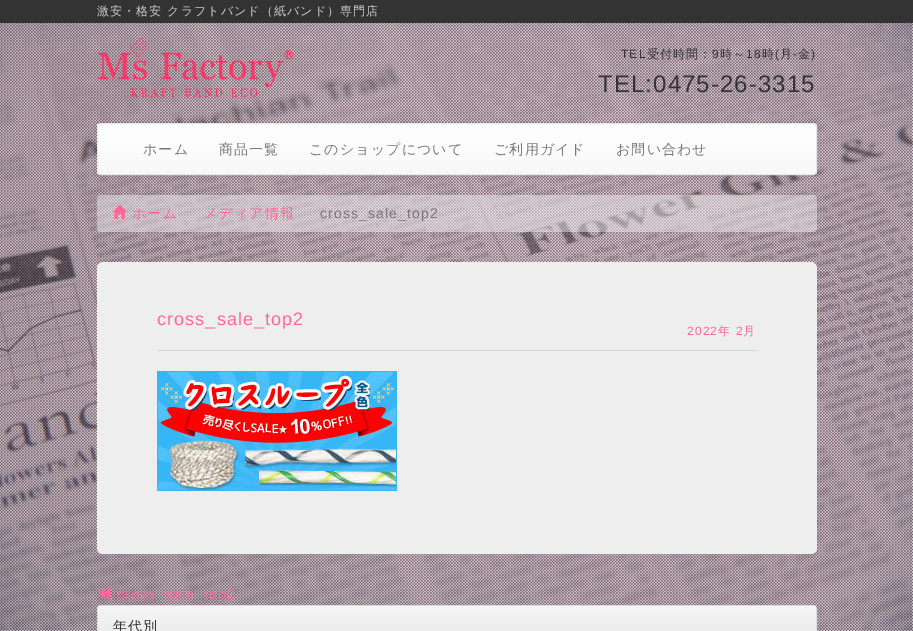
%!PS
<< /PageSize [913 631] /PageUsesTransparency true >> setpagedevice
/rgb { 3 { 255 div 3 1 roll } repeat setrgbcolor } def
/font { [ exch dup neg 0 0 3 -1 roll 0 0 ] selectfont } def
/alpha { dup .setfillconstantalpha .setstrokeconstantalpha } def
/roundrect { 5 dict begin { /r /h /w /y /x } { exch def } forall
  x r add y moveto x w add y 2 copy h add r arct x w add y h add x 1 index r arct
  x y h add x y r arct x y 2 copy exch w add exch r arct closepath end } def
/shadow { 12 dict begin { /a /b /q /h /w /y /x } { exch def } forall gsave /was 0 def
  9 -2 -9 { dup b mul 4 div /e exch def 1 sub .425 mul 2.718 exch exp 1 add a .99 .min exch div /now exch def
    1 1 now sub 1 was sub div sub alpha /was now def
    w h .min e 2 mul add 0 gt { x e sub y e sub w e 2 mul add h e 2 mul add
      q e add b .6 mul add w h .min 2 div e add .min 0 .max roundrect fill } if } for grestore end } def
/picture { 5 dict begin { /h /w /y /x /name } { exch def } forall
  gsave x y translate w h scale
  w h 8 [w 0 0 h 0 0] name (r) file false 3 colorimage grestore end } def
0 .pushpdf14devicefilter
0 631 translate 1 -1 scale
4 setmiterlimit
255 255 255 rgb
0 0 913 631 rectfill
(img_01.rgb) 0 23 913 608 picture
(img_02.rgb) 0 23 913 608 picture
51 51 51 rgb
0 0 913 23 rectfill
(img_03.rgb) 98 38 196 59 picture
0 0 0 rgb
97 124 720 52 4 2.5 0.07 shadow
gsave
97 123 720 52 4 roundrect clip newpath
gsave 97 124 moveto 720 0 rlineto 0 50 rlineto -720 0 rlineto closepath clip newpath
<< /ShadingType 2 /ColorSpace /DeviceRGB /Coords [457 124 457 174] /Extend [true true] /Function << /FunctionType 2 /Domain [0 1] /C0 [1 1 1] /C1 [0.973 0.973 0.973] /N 1 >> >> shfill grestore
grestore
231 231 231 rgb
97.5 123.5 719 51 3.5 roundrect stroke
0.4 alpha
255 255 255 rgb
97 195 720 37 4 roundrect fill
1 alpha
(img_04.rgb) 112 204 15 15 picture
238 238 238 rgb
97 262 720 292 6 roundrect fill
213 213 213 rgb
157 350 600 1 rectfill
(img_05.rgb) 157 371 240 120 picture
(img_06.rgb) 98 587 13 13 picture
221 221 221 rgb
97.5 605.5 719 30 3.5 roundrect stroke
gsave 101 606 moveto 712 0 rlineto 1.5 0 3 1.5 3 3 rcurveto 0 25 rlineto -718 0 rlineto 0 -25 rlineto 0 -1.5 1.5 -3 3 -3 rcurveto closepath clip newpath
<< /ShadingType 2 /ColorSpace /DeviceRGB /Coords [457 606 457 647] /Extend [true true] /Function << /FunctionType 2 /Domain [0 1] /C0 [0.961 0.961 0.961] /C1 [0.91 0.91 0.91] /N 1 >> >> shfill grestore
/WenQuanYiZenHei-Medium 12 font
204 204 204 rgb
97 15 moveto 1.1 0 (激安・格安 クラフトバンド（紙バンド）専門店) ashow
/LiberationSans-Regular 12 font
51 51 51 rgb
621 58 moveto 1.1 0 (TEL) ashow
/WenQuanYiZenHei-Medium 12 font
647 58 moveto 1.1 0 (受付時間：) ashow
/LiberationSans-Regular 12 font
712 58 moveto 1.1 0 (9) ashow
/WenQuanYiZenHei-Medium 12 font
720 58 moveto 1.1 0 (時～) ashow
/LiberationSans-Regular 12 font
746 58 moveto 1.1 0 (18) ashow
/WenQuanYiZenHei-Medium 12 font
762 58 moveto 1.1 0 (時) ashow
/LiberationSans-Regular 12 font
775 58 moveto 1.1 0 (\() ashow
/WenQuanYiZenHei-Medium 12 font
780 58 moveto 1.1 0 (月) ashow
/LiberationSans-Regular 12 font
793 58 moveto 1.1 0 (-) ashow
/WenQuanYiZenHei-Medium 12 font
798 58 moveto 1.1 0 (金) ashow
/LiberationSans-Regular 12 font
811 58 moveto 1.1 0 (\)) ashow
/LiberationSans-Regular 24 font
598 92 moveto 1.1 0 (TEL:0475-26-3315) ashow
/WenQuanYiZenHei-Medium 14 font
119 119 119 rgb
143 154 moveto 1.1 0 (ホーム) ashow
219 154 moveto 1.1 0 (商品一覧) ashow
309 154 moveto 1.1 0 (このショップについて) ashow
494 154 moveto 1.1 0 (ご利用ガイド) ashow
616 154 moveto 1.1 0 (お問い合わせ) ashow
255 102 153 rgb
132 218 moveto 1.1 0 (ホーム) ashow
203 218 moveto 1.1 0 (メディア情報) ashow
/LiberationSans-Regular 14 font
119 119 119 rgb
320 218 moveto 1.1 0 (cross_sale_top2) ashow
/LiberationSans-Regular 18 font
255 102 153 rgb
157 325 moveto 1.1 0 (cross_sale_top2) ashow
/LiberationSans-Regular 12 font
687 335 moveto 1.1 0 (2022) ashow
/WenQuanYiZenHei-Medium 12 font
718 335 moveto 1.1 0 (年) ashow
/LiberationSans-Regular 12 font
736 335 moveto 1.1 0 (2) ashow
/WenQuanYiZenHei-Medium 12 font
743 335 moveto 1.1 0 (月) ashow
/LiberationSans-Regular 14 font
117 599 moveto 1.1 0 (cross_sale_top2) ashow
/WenQuanYiZenHei-Medium 14 font
51 51 51 rgb
113 631 moveto 1.1 0 (年代別) ashow
.poppdf14devicefilter showpage
